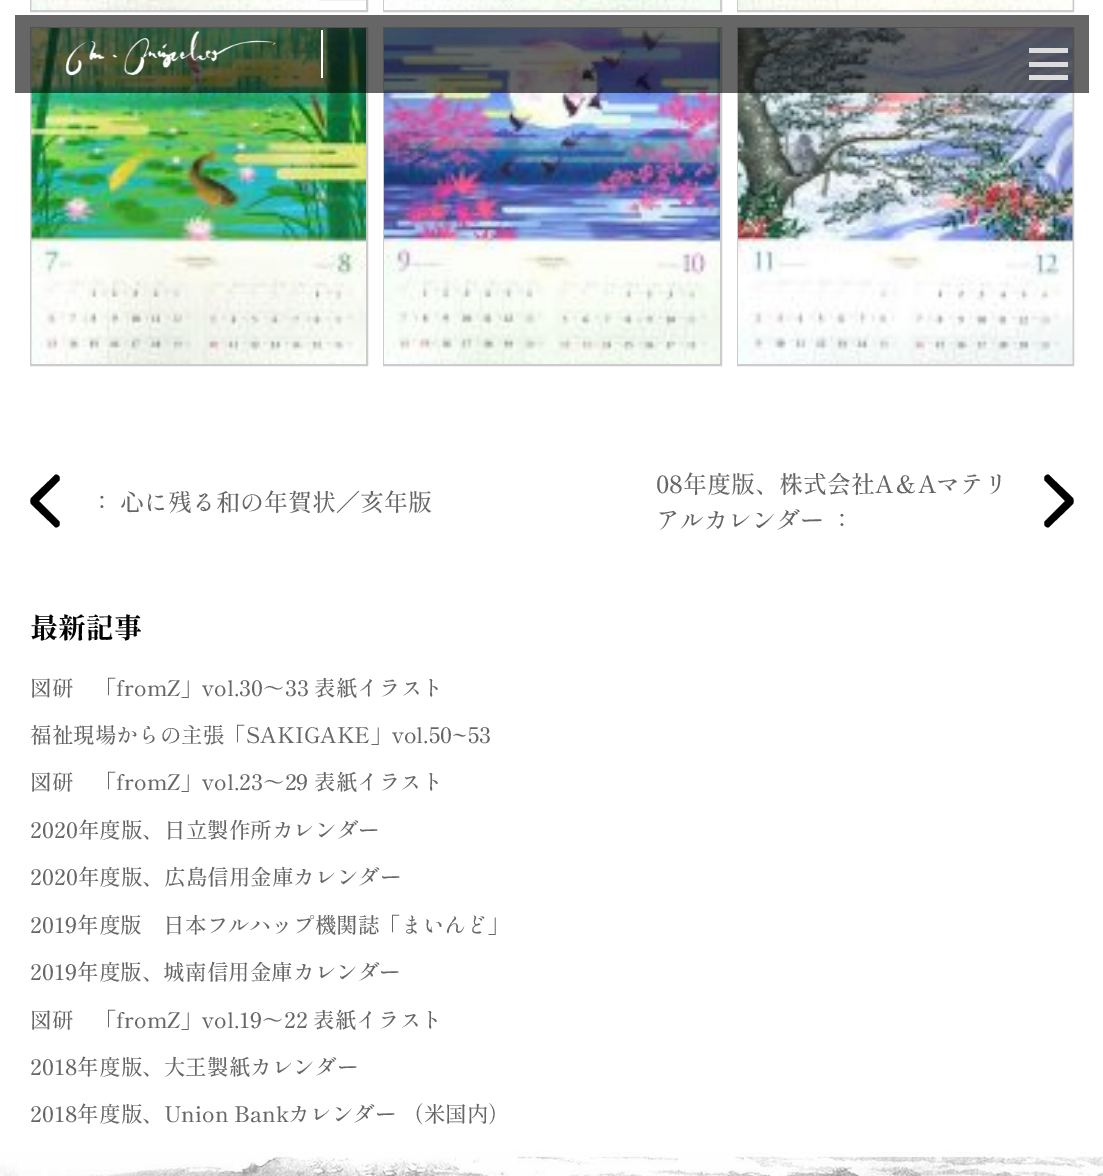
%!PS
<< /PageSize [1103 1176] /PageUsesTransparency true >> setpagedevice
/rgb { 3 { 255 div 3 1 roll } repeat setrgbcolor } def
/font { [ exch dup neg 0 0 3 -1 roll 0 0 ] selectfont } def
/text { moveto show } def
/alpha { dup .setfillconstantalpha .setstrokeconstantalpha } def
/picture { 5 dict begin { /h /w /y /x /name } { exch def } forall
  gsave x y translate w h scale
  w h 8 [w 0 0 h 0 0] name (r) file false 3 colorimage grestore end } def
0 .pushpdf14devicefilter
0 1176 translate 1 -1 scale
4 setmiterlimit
255 255 255 rgb
0 0 1103 1176 rectfill
204 204 204 rgb
2 setlinewidth
31 28 336 337 rectstroke
(img_05.rgb) 31 28 335 336 picture
384 28 337 337 rectstroke
(img_06.rgb) 384 28 336 336 picture
738 28 335 337 rectstroke
(img_07.rgb) 738 28 335 336 picture
0.6 alpha
0 0 0 rgb
15 15 1074 78 rectfill
1 alpha
255 255 255 rgb
321 30 2 48 rectfill
(img_01.rgb) 65 31 211 45 picture
221 221 221 rgb
1029 62 39 5 rectfill
1029 48 39 5 rectfill
1029 75 39 5 rectfill
204 204 204 rgb
31 -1 336 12 rectstroke
(img_02.rgb) 31 0 289 10 picture
384 -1 337 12 rectstroke
(img_03.rgb) 384 0 336 10 picture
738 -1 335 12 rectstroke
(img_04.rgb) 738 0 335 10 picture
0 0 0 rgb
31 498 moveto -1 2 -1 4 0 6 rcurveto 23 22 rlineto 1 2 3 2 5 0 rcurveto 1 -1 1 -4 0 -5 rcurveto -20 -20 rlineto 20 -20 rlineto 1 -1 1 -4 0 -5 rcurveto -2 -2 -4 -2 -5 0 rcurveto closepath fill
1073 498 moveto 1 2 1 4 0 6 rcurveto -23 22 rlineto -1 2 -3 2 -5 0 rcurveto -1 -1 -1 -4 0 -5 rcurveto 20 -20 rlineto -20 -20 rlineto -1 -1 -1 -4 0 -5 rcurveto 2 -2 4 -2 5 0 rcurveto closepath fill
(img_08.rgb) 0 1151 1103 25 picture
/ShipporiMincho-Medium 24 font
102 102 102 rgb
(： 心に残る和の年賀状／亥年版) 90 511 text
(08年度版、株式会社A＆Aマテリ) 656 493 text
(アルカレンダー ：) 656 529 text
/ShipporiMincho-Bold 28 font
3 3 3 rgb
(最新記事) 30 638 text
/ShipporiMincho-Medium 21.6 font
102 102 102 rgb
(図研　「fromZ」vol.30～33 表紙イラスト) 30 696 text
(福祉現場からの主張「SAKIGAKE」vol.50~53) 30 743 text
(図研　「fromZ」vol.23～29 表紙イラスト) 30 790 text
(2020年度版、日立製作所カレンダー) 30 838 text
(2020年度版、広島信用金庫カレンダー) 30 885 text
(2019年度版　日本フルハップ機関誌「まいんど」) 30 933 text
(2019年度版、城南信用金庫カレンダー) 30 980 text
(図研　「fromZ」vol.19～22 表紙イラスト) 30 1028 text
(2018年度版、大王製紙カレンダー) 30 1075 text
(2018年度版、Union Bankカレンダー （米国内）) 30 1122 text
.poppdf14devicefilter showpage
